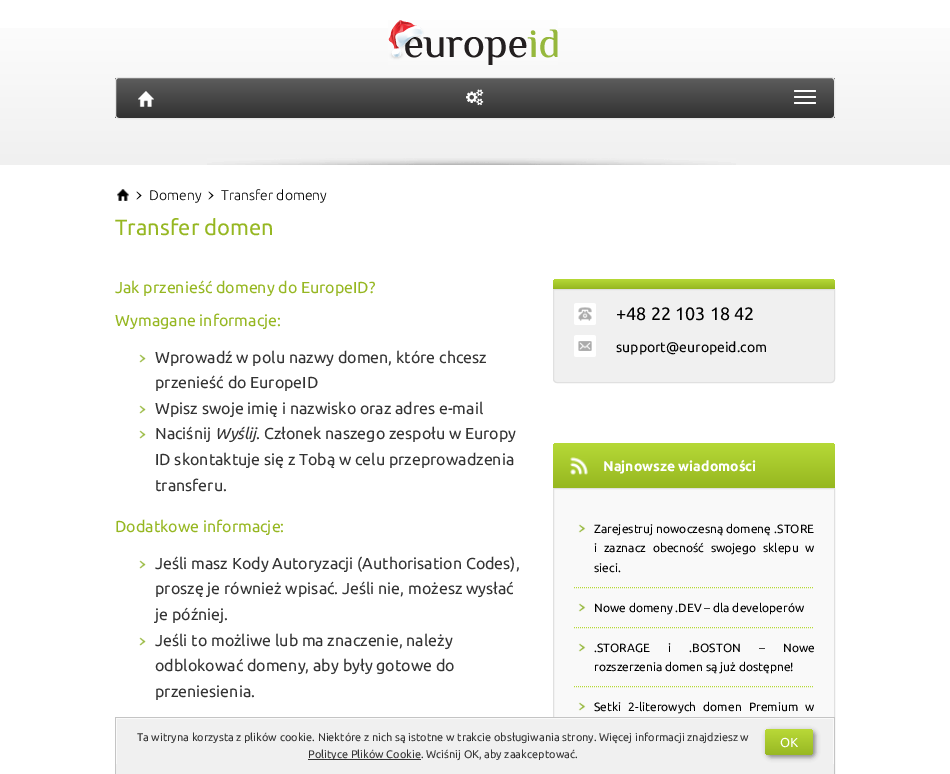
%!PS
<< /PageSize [950 774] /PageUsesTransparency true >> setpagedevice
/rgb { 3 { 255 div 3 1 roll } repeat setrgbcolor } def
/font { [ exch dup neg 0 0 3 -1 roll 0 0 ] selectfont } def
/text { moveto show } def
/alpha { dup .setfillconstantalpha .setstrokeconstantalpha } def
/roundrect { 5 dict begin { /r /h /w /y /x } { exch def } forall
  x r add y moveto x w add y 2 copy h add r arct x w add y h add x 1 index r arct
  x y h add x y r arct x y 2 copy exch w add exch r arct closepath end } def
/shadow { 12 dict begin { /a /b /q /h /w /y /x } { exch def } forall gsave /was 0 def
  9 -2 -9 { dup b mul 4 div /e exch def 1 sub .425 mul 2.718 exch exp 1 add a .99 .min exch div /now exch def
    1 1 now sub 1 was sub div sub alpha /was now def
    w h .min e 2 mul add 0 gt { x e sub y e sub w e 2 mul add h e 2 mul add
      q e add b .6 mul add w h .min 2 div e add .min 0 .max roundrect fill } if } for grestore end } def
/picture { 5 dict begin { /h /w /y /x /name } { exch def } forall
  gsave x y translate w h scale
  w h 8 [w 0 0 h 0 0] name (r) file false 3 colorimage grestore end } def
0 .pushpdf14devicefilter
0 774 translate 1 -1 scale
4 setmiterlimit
255 255 255 rgb
0 0 950 774 rectfill
gsave 0 28 moveto 950 0 rlineto 0 137 rlineto -950 0 rlineto closepath clip newpath
<< /ShadingType 2 /ColorSpace /DeviceRGB /Coords [475 0 475 165] /Extend [true true] /Function << /FunctionType 2 /Domain [0 1] /C0 [1 1 1] /C1 [0.941 0.941 0.941] /N 1 >> >> shfill grestore
(img_01.rgb) 388 20 170 45 picture
gsave
115 77 720 42 4 roundrect clip newpath
gsave 115 78 moveto 720 0 rlineto 0 40 rlineto -720 0 rlineto closepath clip newpath
<< /ShadingType 2 /ColorSpace /DeviceRGB /Coords [475 78 475 118] /Extend [true true] /Function << /FunctionType 2 /Domain [0 1] /C0 [0.365 0.365 0.365] /C1 [0.192 0.192 0.192] /N 1 >> >> shfill grestore
grestore
231 231 231 rgb
115.5 77.5 719 41 3.5 roundrect stroke
(img_02.rgb) 138 91 16 16 picture
(img_03.rgb) 466 89 18 17 picture
255 255 255 rgb
794 90 22 2 1 roundrect fill
794 96 22 2 1 roundrect fill
794 102 22 2 1 roundrect fill
(img_04.rgb) 207 158 529 7 picture
(img_05.rgb) 117 189 12 12 picture
(img_06.rgb) 136 191 6 9 picture
(img_06.rgb) 208 191 6 9 picture
(img_07.rgb) 139 354 7 9 picture
(img_07.rgb) 139 405 7 9 picture
(img_07.rgb) 139 430 7 9 picture
(img_07.rgb) 139 560 7 9 picture
(img_07.rgb) 139 637 7 9 picture
gsave 557 279 moveto 274 0 rlineto 2 0 4 2 4 4 rcurveto 0 6 rlineto -282 0 rlineto 0 -6 rlineto 0 -2 2 -4 4 -4 rcurveto closepath clip newpath
<< /ShadingType 2 /ColorSpace /DeviceRGB /Coords [694 279 694 289] /Extend [true true] /Function << /FunctionType 2 /Domain [0 1] /C0 [0.714 0.851 0.216] /C1 [0.588 0.718 0.125] /N 1 >> >> shfill grestore
240 240 240 rgb
553.5 289.5 moveto 281 0 rlineto 0 89.5 rlineto 0 2 -1.5 3.5 -3.5 3.5 rcurveto -274 0 rlineto -2 0 -3.5 -1.5 -3.5 -3.5 rcurveto closepath gsave fill grestore
224 224 224 rgb
stroke
(img_08.rgb) 574 303 22 22 picture
(img_09.rgb) 574 335 22 22 picture
gsave 557 443 moveto 274 0 rlineto 2 0 4 2 4 4 rcurveto 0 41 rlineto -282 0 rlineto 0 -41 rlineto 0 -2 2 -4 4 -4 rcurveto closepath clip newpath
<< /ShadingType 2 /ColorSpace /DeviceRGB /Coords [694 443 694 488] /Extend [true true] /Function << /FunctionType 2 /Domain [0 1] /C0 [0.714 0.851 0.216] /C1 [0.588 0.718 0.125] /N 1 >> >> shfill grestore
(img_10.rgb) 570 457 18 18 picture
249 249 249 rgb
554 489 280 228 rectfill
224 224 224 rgb
553.5 488.5 281 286 rectstroke
(img_11.rgb) 578 524 8 9 picture
182 217 55 rgb
[1 1] 0 setdash
574 587.5 moveto 240 0 rlineto stroke
(img_11.rgb) 578 603 8 9 picture
574 627.5 moveto 240 0 rlineto stroke
(img_11.rgb) 578 643 8 9 picture
574 686.5 moveto 240 0 rlineto stroke
(img_11.rgb) 578 702 8 9 picture
240 240 240 rgb
116 719 718 55 rectfill
196 196 196 rgb
115 717 720 1 rectfill
834 717 1 57 rectfill
115 717 1 57 rectfill
250 250 250 rgb
116 718 718 1 rectfill
833 718 1 46 rectfill
116 718 1 46 rectfill
51 51 51 rgb
308 759 113 1 rectfill
20 20 20 rgb
767 731 48 26 4 2.5 0.5 shadow
gsave 765 729 48 26 4 roundrect clip newpath
<< /ShadingType 2 /ColorSpace /DeviceRGB /Coords [789 729 789 755] /Extend [true true] /Function << /FunctionType 2 /Domain [0 1] /C0 [0.725 0.851 0.22] /C1 [0.596 0.722 0.137] /N 1 >> >> shfill grestore
/Ubuntu-Light 14 font
0 0 0 rgb
(Domeny) 149 200 text
(Transfer domeny) 221 200 text
/Ubuntu-Regular 22 font
150 183 34 rgb
(Transfer domen) 115 235 text
/Ubuntu-Regular 16 font
(Jak przenieść domeny do EuropeID?) 115 293 text
(Wymagane informacje:) 115 326 text
51 51 51 rgb
(Wprowadź w polu nazwy domen, które chcesz) 155 363 text
(przenieść do EuropeID) 155 388 text
(Wpisz swoje imię i nazwisko oraz adres e-mail) 155 414 text
(Naciśnij) 155 439 text
/Ubuntu-Italic 16 font
(Wyślij) 215 439 text
/Ubuntu-Regular 16 font
(. Członek naszego zespołu w Europy) 256 439 text
(ID skontaktuje się z Tobą w celu przeprowadzenia) 155 465 text
(transferu.) 155 491 text
150 183 34 rgb
(Dodatkowe informacje:) 115 532 text
51 51 51 rgb
(Jeśli masz Kody Autoryzacji \(Authorisation Codes\),) 155 569 text
(proszę je również wpisać. Jeśli nie, możesz wysłać) 155 594 text
(je później.) 155 620 text
(Jeśli to możliwe lub ma znaczenie, należy) 155 646 text
(odblokować domeny, aby były gotowe do) 155 671 text
(przeniesienia.) 155 697 text
/Ubuntu-Regular 18 font
0 0 0 rgb
(+48 22 103 18 42) 616 320 text
/Ubuntu-Regular 14 font
(support@europeid.com) 616 352 text
/Ubuntu-Bold 14 font
255 255 255 rgb
(Najnowsze wiadomości) 603 471 text
/Ubuntu-Regular 12 font
0 0 0 rgb
594 533 moveto 0.5 0 32 (Zarejestruj nowoczesną domenę .STORE) widthshow
594 552 moveto 4 0 32 (i zaznacz obecność swojego sklepu w) widthshow
(sieci.) 594 572 text
(Nowe domeny .DEV – dla developerów) 594 612 text
594 652 moveto 15.5 0 32 (.STORAGE i .BOSTON – Nowe) widthshow
(rozszerzenia domen są już dostępne!) 594 671 text
594 711 moveto 4.5 0 32 (Setki 2-literowych domen Premium w) widthshow
/Ubuntu-Regular 11 font
51 51 51 rgb
(Ta witryna korzysta z plików cookie. Niektóre z nich są istotne w trakcie obsługiwania strony. Więcej informacji znajdziesz w) 137 741 text
(Polityce Plików Cookie. Wciśnij OK, aby zaakceptować.) 308 758 text
/Ubuntu-Regular 13 font
255 255 255 rgb
(OK) 780 747 text
.poppdf14devicefilter showpage
